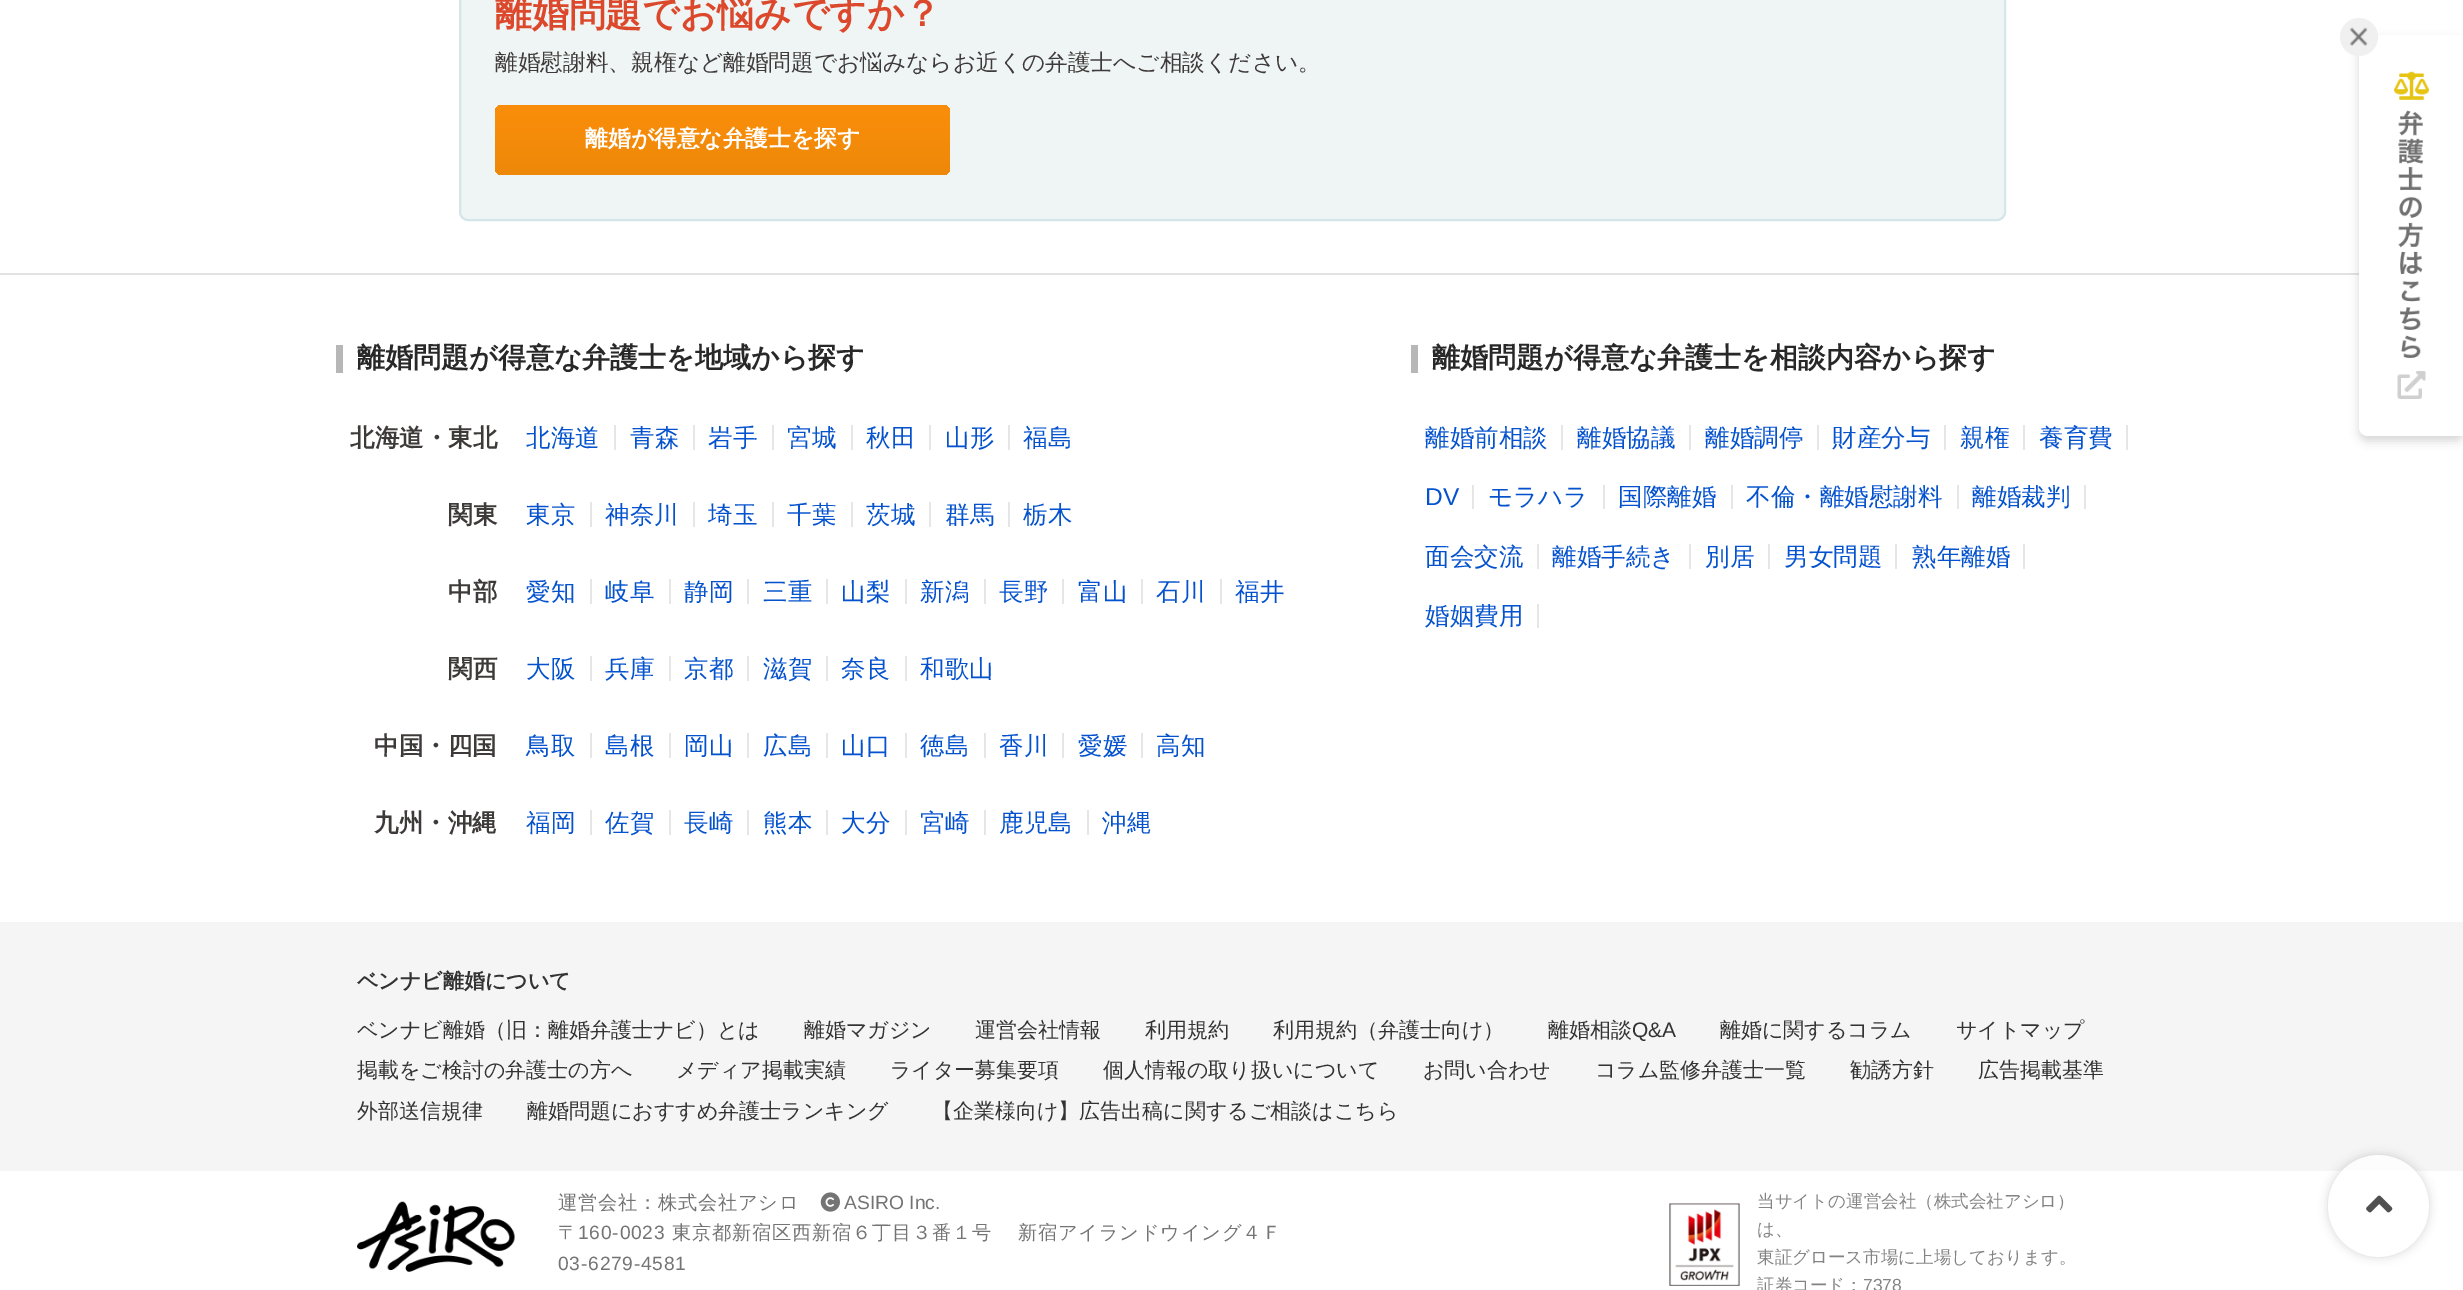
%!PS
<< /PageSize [2463 1290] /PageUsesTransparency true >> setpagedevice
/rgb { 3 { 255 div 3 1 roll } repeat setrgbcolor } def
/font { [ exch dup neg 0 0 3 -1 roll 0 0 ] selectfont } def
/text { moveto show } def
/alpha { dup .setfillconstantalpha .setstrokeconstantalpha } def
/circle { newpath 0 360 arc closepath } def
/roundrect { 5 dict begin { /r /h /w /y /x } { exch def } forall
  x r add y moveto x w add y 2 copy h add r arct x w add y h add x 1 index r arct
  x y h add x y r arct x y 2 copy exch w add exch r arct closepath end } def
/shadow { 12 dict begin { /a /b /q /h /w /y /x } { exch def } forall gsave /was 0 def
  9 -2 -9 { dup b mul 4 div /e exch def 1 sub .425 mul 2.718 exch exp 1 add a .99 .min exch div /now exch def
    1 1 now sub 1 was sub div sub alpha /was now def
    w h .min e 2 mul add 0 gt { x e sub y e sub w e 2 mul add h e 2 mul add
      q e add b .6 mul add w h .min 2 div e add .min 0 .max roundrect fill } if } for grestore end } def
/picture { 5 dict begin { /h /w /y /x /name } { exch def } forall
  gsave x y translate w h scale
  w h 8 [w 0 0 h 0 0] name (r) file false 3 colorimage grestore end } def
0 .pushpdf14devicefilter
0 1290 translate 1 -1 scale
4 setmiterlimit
255 255 255 rgb
0 0 2463 1290 rectfill
239 245 245 rgb
460 -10 1545 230 8 roundrect gsave fill grestore
213 230 234 rgb
2 setlinewidth
stroke
gsave 495 105 455 70 7 roundrect clip newpath
<< /ShadingType 2 /ColorSpace /DeviceRGB /Coords [723 105 723 175] /Extend [true true] /Function << /FunctionType 2 /Domain [0 1] /C0 [0.98 0.557 0.039] /C1 [0.933 0.533 0.035] /N 1 >> >> shfill grestore
226 226 226 rgb
0 273 2359 2 rectfill
0 0 0 rgb
2359 40 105 401 9 5 0.16 shadow
255 255 255 rgb
2368 35 moveto 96 0 rlineto 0 401 rlineto -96 0 rlineto -5 0 -9 -4 -9 -9 rcurveto 0 -383 rlineto 0 -5 4 -9 9 -9 rcurveto closepath fill
240 240 240 rgb
2359 37 19 circle fill
(img_01.rgb) 2349 27 19 19 picture
(img_02.rgb) 2361 71 68 363 picture
183 183 183 rgb
336 345 7 28 rectfill
230 230 230 rgb
614 425 2 25 rectfill
693 425 2 25 rectfill
772 425 2 25 rectfill
851 425 2 25 rectfill
929 425 2 25 rectfill
1008 425 2 25 rectfill
590 502 2 25 rectfill
693 502 2 25 rectfill
772 502 2 25 rectfill
851 502 2 25 rectfill
929 502 2 25 rectfill
1008 502 2 25 rectfill
590 579 2 25 rectfill
669 579 2 25 rectfill
747 579 2 25 rectfill
826 579 2 25 rectfill
905 579 2 25 rectfill
984 579 2 25 rectfill
1062 579 2 25 rectfill
1141 579 2 25 rectfill
1220 579 2 25 rectfill
590 656 2 25 rectfill
669 656 2 25 rectfill
747 656 2 25 rectfill
826 656 2 25 rectfill
905 656 2 25 rectfill
590 733 2 25 rectfill
669 733 2 25 rectfill
747 733 2 25 rectfill
826 733 2 25 rectfill
905 733 2 25 rectfill
984 733 2 25 rectfill
1062 733 2 25 rectfill
1141 733 2 25 rectfill
590 810 2 25 rectfill
669 810 2 25 rectfill
747 810 2 25 rectfill
826 810 2 25 rectfill
905 810 2 25 rectfill
984 810 2 25 rectfill
1087 810 2 25 rectfill
183 183 183 rgb
1411 345 7 28 rectfill
230 230 230 rgb
1561 425 2 25 rectfill
1689 425 2 25 rectfill
1817 425 2 25 rectfill
1944 425 2 25 rectfill
2023 425 2 25 rectfill
2126 425 2 25 rectfill
1472 485 2 24 rectfill
1603 485 2 24 rectfill
1731 485 2 24 rectfill
1957 485 2 24 rectfill
2084 485 2 24 rectfill
1537 544 2 25 rectfill
1689 544 2 25 rectfill
1768 544 2 25 rectfill
1895 544 2 25 rectfill
2023 544 2 25 rectfill
1537 604 2 24 rectfill
245 245 245 rgb
0 922 2463 249 rectfill
(img_03.rgb) 357 1201 158 71 picture
(img_04.rgb) 820 1192 20 20 picture
(img_05.rgb) 1669 1203 71 83 picture
gsave
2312 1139 moveto 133 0 rlineto 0 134 rlineto -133 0 rlineto closepath 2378.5 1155 moveto 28 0 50.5 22.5 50.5 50.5 rcurveto 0 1 rlineto 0 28 -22.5 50.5 -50.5 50.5 rcurveto -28 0 -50.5 -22.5 -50.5 -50.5 rcurveto 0 -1 rlineto 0 -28 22.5 -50.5 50.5 -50.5 rcurveto closepath eoclip newpath
0 0 0 rgb
2328 1155 101 102 50.5 5 0.16 shadow
grestore
0.8 alpha
255 255 255 rgb
2328 1155 101 102 50.5 roundrect fill
1 alpha
(img_06.rgb) 2366 1195 27 18 picture
/WenQuanYiZenHei-Bold 36.75 font
220 72 43 rgb
(離婚問題でお悩みですか？) 495 26 text
/WenQuanYiZenHei-Medium 22.7 font
62 58 57 rgb
(離婚慰謝料、親権など離婚問題でお悩みならお近くの弁護士へご相談ください。) 495 70 text
/WenQuanYiZenHei-Bold 22.75 font
255 255 255 rgb
(離婚が得意な弁護士を探す) 585 146 text
/WenQuanYiZenHei-Bold 28 font
40 40 40 rgb
(離婚問題が得意な弁護士を地域から探す) 357 367 text
/WenQuanYiZenHei-Bold 24.5 font
62 58 57 rgb
(北海道・東北) 350 446 text
/WenQuanYiZenHei-Medium 24.5 font
4 82 206 rgb
(北海道) 526 446 text
(青森) 630 446 text
(岩手) 708 446 text
(宮城) 787 446 text
(秋田) 866 446 text
(山形) 945 446 text
(福島) 1023 446 text
/WenQuanYiZenHei-Bold 24.5 font
62 58 57 rgb
(関東) 448 523 text
/WenQuanYiZenHei-Medium 24.5 font
4 82 206 rgb
(東京) 526 523 text
(神奈川) 605 523 text
(埼玉) 708 523 text
(千葉) 787 523 text
(茨城) 866 523 text
(群馬) 945 523 text
(栃木) 1023 523 text
/WenQuanYiZenHei-Bold 24.5 font
62 58 57 rgb
(中部) 448 600 text
/WenQuanYiZenHei-Medium 24.5 font
4 82 206 rgb
(愛知) 526 600 text
(岐阜) 605 600 text
(静岡) 684 600 text
(三重) 763 600 text
(山梨) 841 600 text
(新潟) 920 600 text
(長野) 999 600 text
(富山) 1078 600 text
(石川) 1156 600 text
(福井) 1235 600 text
/WenQuanYiZenHei-Bold 24.5 font
62 58 57 rgb
(関西) 448 677 text
/WenQuanYiZenHei-Medium 24.5 font
4 82 206 rgb
(大阪) 526 677 text
(兵庫) 605 677 text
(京都) 684 677 text
(滋賀) 763 677 text
(奈良) 841 677 text
(和歌山) 920 677 text
/WenQuanYiZenHei-Bold 24.5 font
62 58 57 rgb
(中国・四国) 374 754 text
/WenQuanYiZenHei-Medium 24.5 font
4 82 206 rgb
(鳥取) 526 754 text
(島根) 605 754 text
(岡山) 684 754 text
(広島) 763 754 text
(山口) 841 754 text
(徳島) 920 754 text
(香川) 999 754 text
(愛媛) 1078 754 text
(高知) 1156 754 text
/WenQuanYiZenHei-Bold 24.5 font
62 58 57 rgb
(九州・沖縄) 374 831 text
/WenQuanYiZenHei-Medium 24.5 font
4 82 206 rgb
(福岡) 526 831 text
(佐賀) 605 831 text
(長崎) 684 831 text
(熊本) 763 831 text
(大分) 841 831 text
(宮崎) 920 831 text
(鹿児島) 999 831 text
(沖縄) 1102 831 text
/WenQuanYiZenHei-Bold 28 font
40 40 40 rgb
(離婚問題が得意な弁護士を相談内容から探す) 1432 367 text
/WenQuanYiZenHei-Medium 24.5 font
4 82 206 rgb
(離婚前相談) 1425 446 text
(離婚協議) 1577 446 text
(離婚調停) 1705 446 text
(財産分与) 1832 446 text
(親権) 1960 446 text
(養育費) 2039 446 text
/LiberationSans-Regular 24.5 font
(DV) 1425 505 text
/WenQuanYiZenHei-Medium 24.5 font
(モラハラ) 1488 505 text
(国際離婚) 1618 505 text
(不倫・離婚慰謝料) 1746 505 text
(離婚裁判) 1972 505 text
(面会交流) 1425 565 text
(離婚手続き) 1552 565 text
(別居) 1705 565 text
(男女問題) 1784 565 text
(熟年離婚) 1912 565 text
(婚姻費用) 1425 624 text
/WenQuanYiZenHei-Bold 21 font
51 51 51 rgb
(ベンナビ離婚について) 357 988 text
/WenQuanYiZenHei-Medium 21 font
(ベンナビ離婚（旧：離婚弁護士ナビ）とは) 357 1037 text
(離婚マガジン) 804 1037 text
(運営会社情報) 975 1037 text
(利用規約) 1145 1037 text
(利用規約（弁護士向け）) 1273 1037 text
(離婚相談) 1548 1037 text
/LiberationSans-Regular 21 font
(Q&A) 1632 1037 text
/WenQuanYiZenHei-Medium 21 font
(離婚に関するコラム) 1720 1037 text
(サイトマップ) 1956 1037 text
(掲載をご検討の弁護士の方へ) 357 1077 text
(メディア掲載実績) 676 1077 text
(ライター募集要項) 890 1077 text
(個人情報の取り扱いについて) 1103 1077 text
(お問い合わせ) 1423 1077 text
(コラム監修弁護士一覧) 1595 1077 text
(勧誘方針) 1850 1077 text
(広告掲載基準) 1978 1077 text
(外部送信規律) 357 1118 text
(離婚問題におすすめ弁護士ランキング) 527 1118 text
(【企業様向け】広告出稿に関するご相談はこちら) 932 1118 text
/WenQuanYiZenHei-Medium 19.25 font
116 116 116 rgb
558 1209 moveto 0.75 0 (運営会社：株式会社アシロ) ashow
/LiberationSans-Regular 19.25 font
(ASIRO Inc.) 844 1209 text
/WenQuanYiZenHei-Medium 19.25 font
558 1239 moveto 0.75 0 (〒) ashow
/LiberationSans-Regular 19.25 font
578 1239 moveto 0.75 0 (160-0023) ashow
/WenQuanYiZenHei-Medium 19.25 font
672 1239 moveto 0.75 0 (東京都新宿区西新宿６丁目３番１号) ashow
1018 1239 moveto 0.75 0 (新宿アイランドウイング４Ｆ) ashow
/LiberationSans-Regular 19.25 font
558 1270 moveto 0.75 0 (03-6279-4581) ashow
/WenQuanYiZenHei-Medium 17.5 font
132 132 132 rgb
(当サイトの運営会社（株式会社アシロ）) 1757 1207 text
(は、) 1757 1235 text
(東証グロース市場に上場しております。) 1757 1263 text
(証券コード：) 1757 1291 text
/LiberationSans-Regular 17.5 font
(7378) 1863 1291 text
.poppdf14devicefilter showpage
